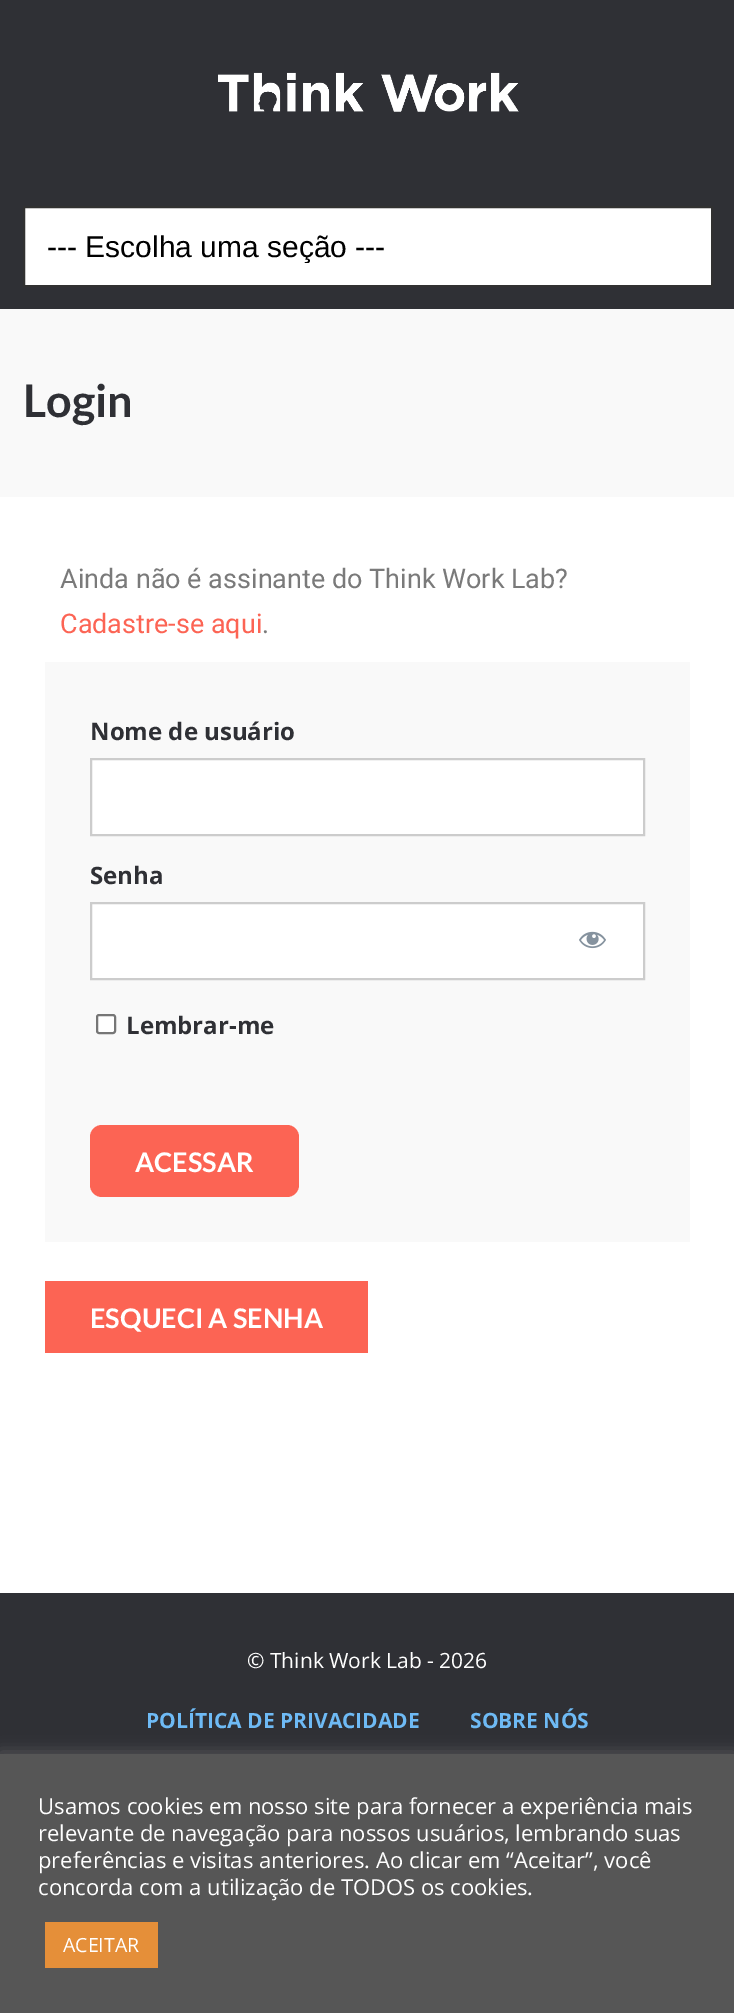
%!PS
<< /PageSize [734 2013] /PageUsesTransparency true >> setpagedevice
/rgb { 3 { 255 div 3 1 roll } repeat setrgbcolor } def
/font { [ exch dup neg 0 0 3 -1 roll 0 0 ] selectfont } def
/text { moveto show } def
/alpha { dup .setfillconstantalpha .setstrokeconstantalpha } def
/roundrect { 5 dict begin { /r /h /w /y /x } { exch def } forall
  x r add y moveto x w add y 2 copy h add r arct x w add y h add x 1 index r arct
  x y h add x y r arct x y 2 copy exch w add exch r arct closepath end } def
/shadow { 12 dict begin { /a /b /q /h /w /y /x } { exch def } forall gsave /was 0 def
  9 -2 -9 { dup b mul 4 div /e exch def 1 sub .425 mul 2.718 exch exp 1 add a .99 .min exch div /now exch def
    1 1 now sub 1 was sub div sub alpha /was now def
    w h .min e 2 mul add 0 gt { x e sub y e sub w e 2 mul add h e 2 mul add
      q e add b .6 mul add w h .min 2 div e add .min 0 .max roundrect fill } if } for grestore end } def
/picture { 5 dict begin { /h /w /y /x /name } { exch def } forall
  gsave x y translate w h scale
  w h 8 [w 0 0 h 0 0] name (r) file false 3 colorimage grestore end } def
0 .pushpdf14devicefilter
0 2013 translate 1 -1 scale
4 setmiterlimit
255 255 255 rgb
0 0 734 2013 rectfill
47 48 53 rgb
0 0 734 309 rectfill
(img_01.rgb) 218 72 301 40 picture
255 255 255 rgb
24 207 moveto 688 0 rlineto 0 79 rlineto -688 0 rlineto closepath gsave fill grestore
49 49 49 rgb
2 setlinewidth
stroke
249 249 249 rgb
0 309 734 188 rectfill
45 662 645 580 rectfill
255 255 255 rgb
91 759 moveto 553 0 rlineto 0 76 rlineto -553 0 rlineto closepath gsave fill grestore
204 204 204 rgb
stroke
255 255 255 rgb
91 903 moveto 553 0 rlineto 0 76 rlineto -553 0 rlineto closepath gsave fill grestore
204 204 204 rgb
stroke
(img_02.rgb) 579 931 27 18 picture
255 255 255 rgb
97 1015 18 18 2 roundrect gsave fill grestore
118 118 118 rgb
stroke
252 100 84 rgb
90 1125 209 72 12 roundrect fill
45 1281 323 72 rectfill
47 48 53 rgb
0 1593 734 161 rectfill
172 171 171 rgb
0 1752 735 260 0 7.5 0.3 shadow
86 86 86 rgb
0 1754 734 259 rectfill
229 143 57 rgb
45 1922 113 46 rectfill
gsave
47 230 642 33 rectclip
/LiberationSans-Regular 30 font
0 0 0 rgb
(--- Escolha uma seção ---) 47 257 text
grestore
/Lato-Bold 45 font
47 48 53 rgb
(Login) 23 417 text
/Roboto-Regular 27 font
122 122 122 rgb
(Ainda não é assinante do Think Work Lab?) 60 588 text
252 100 84 rgb
(Cadastre-se aqui) 60 633 text
122 122 122 rgb
(.) 262 633 text
/OpenSans-Bold 24 font
47 48 53 rgb
(Nome de usuário) 90 740 text
(Senha) 90 884 text
(Lembrar-me) 126 1034 text
/Lato-Bold 27 font
255 255 255 rgb
(ACESSAR) 135 1172 text
(ESQUECI A SENHA) 90 1328 text
/OpenSans-Regular 21 font
(© Think Work Lab - 2026) 247 1668 text
/OpenSans-Bold 21 font
110 186 245 rgb
(POLÍTICA DE PRIVACIDADE) 146 1728 text
(SOBRE NÓS) 470 1728 text
/OpenSans-Regular 22 font
255 255 255 rgb
(Usamos cookies em nosso site para fornecer a experiência mais) 38 1814 text
(relevante de navegação para nossos usuários, lembrando suas) 38 1841 text
(preferências e visitas anteriores. Ao clicar em “Aceitar”, você) 38 1868 text
(concorda com a utilização de TODOS os cookies.) 38 1895 text
/OpenSans-Regular 19.5 font
(ACEITAR) 63 1952 text
.poppdf14devicefilter showpage
